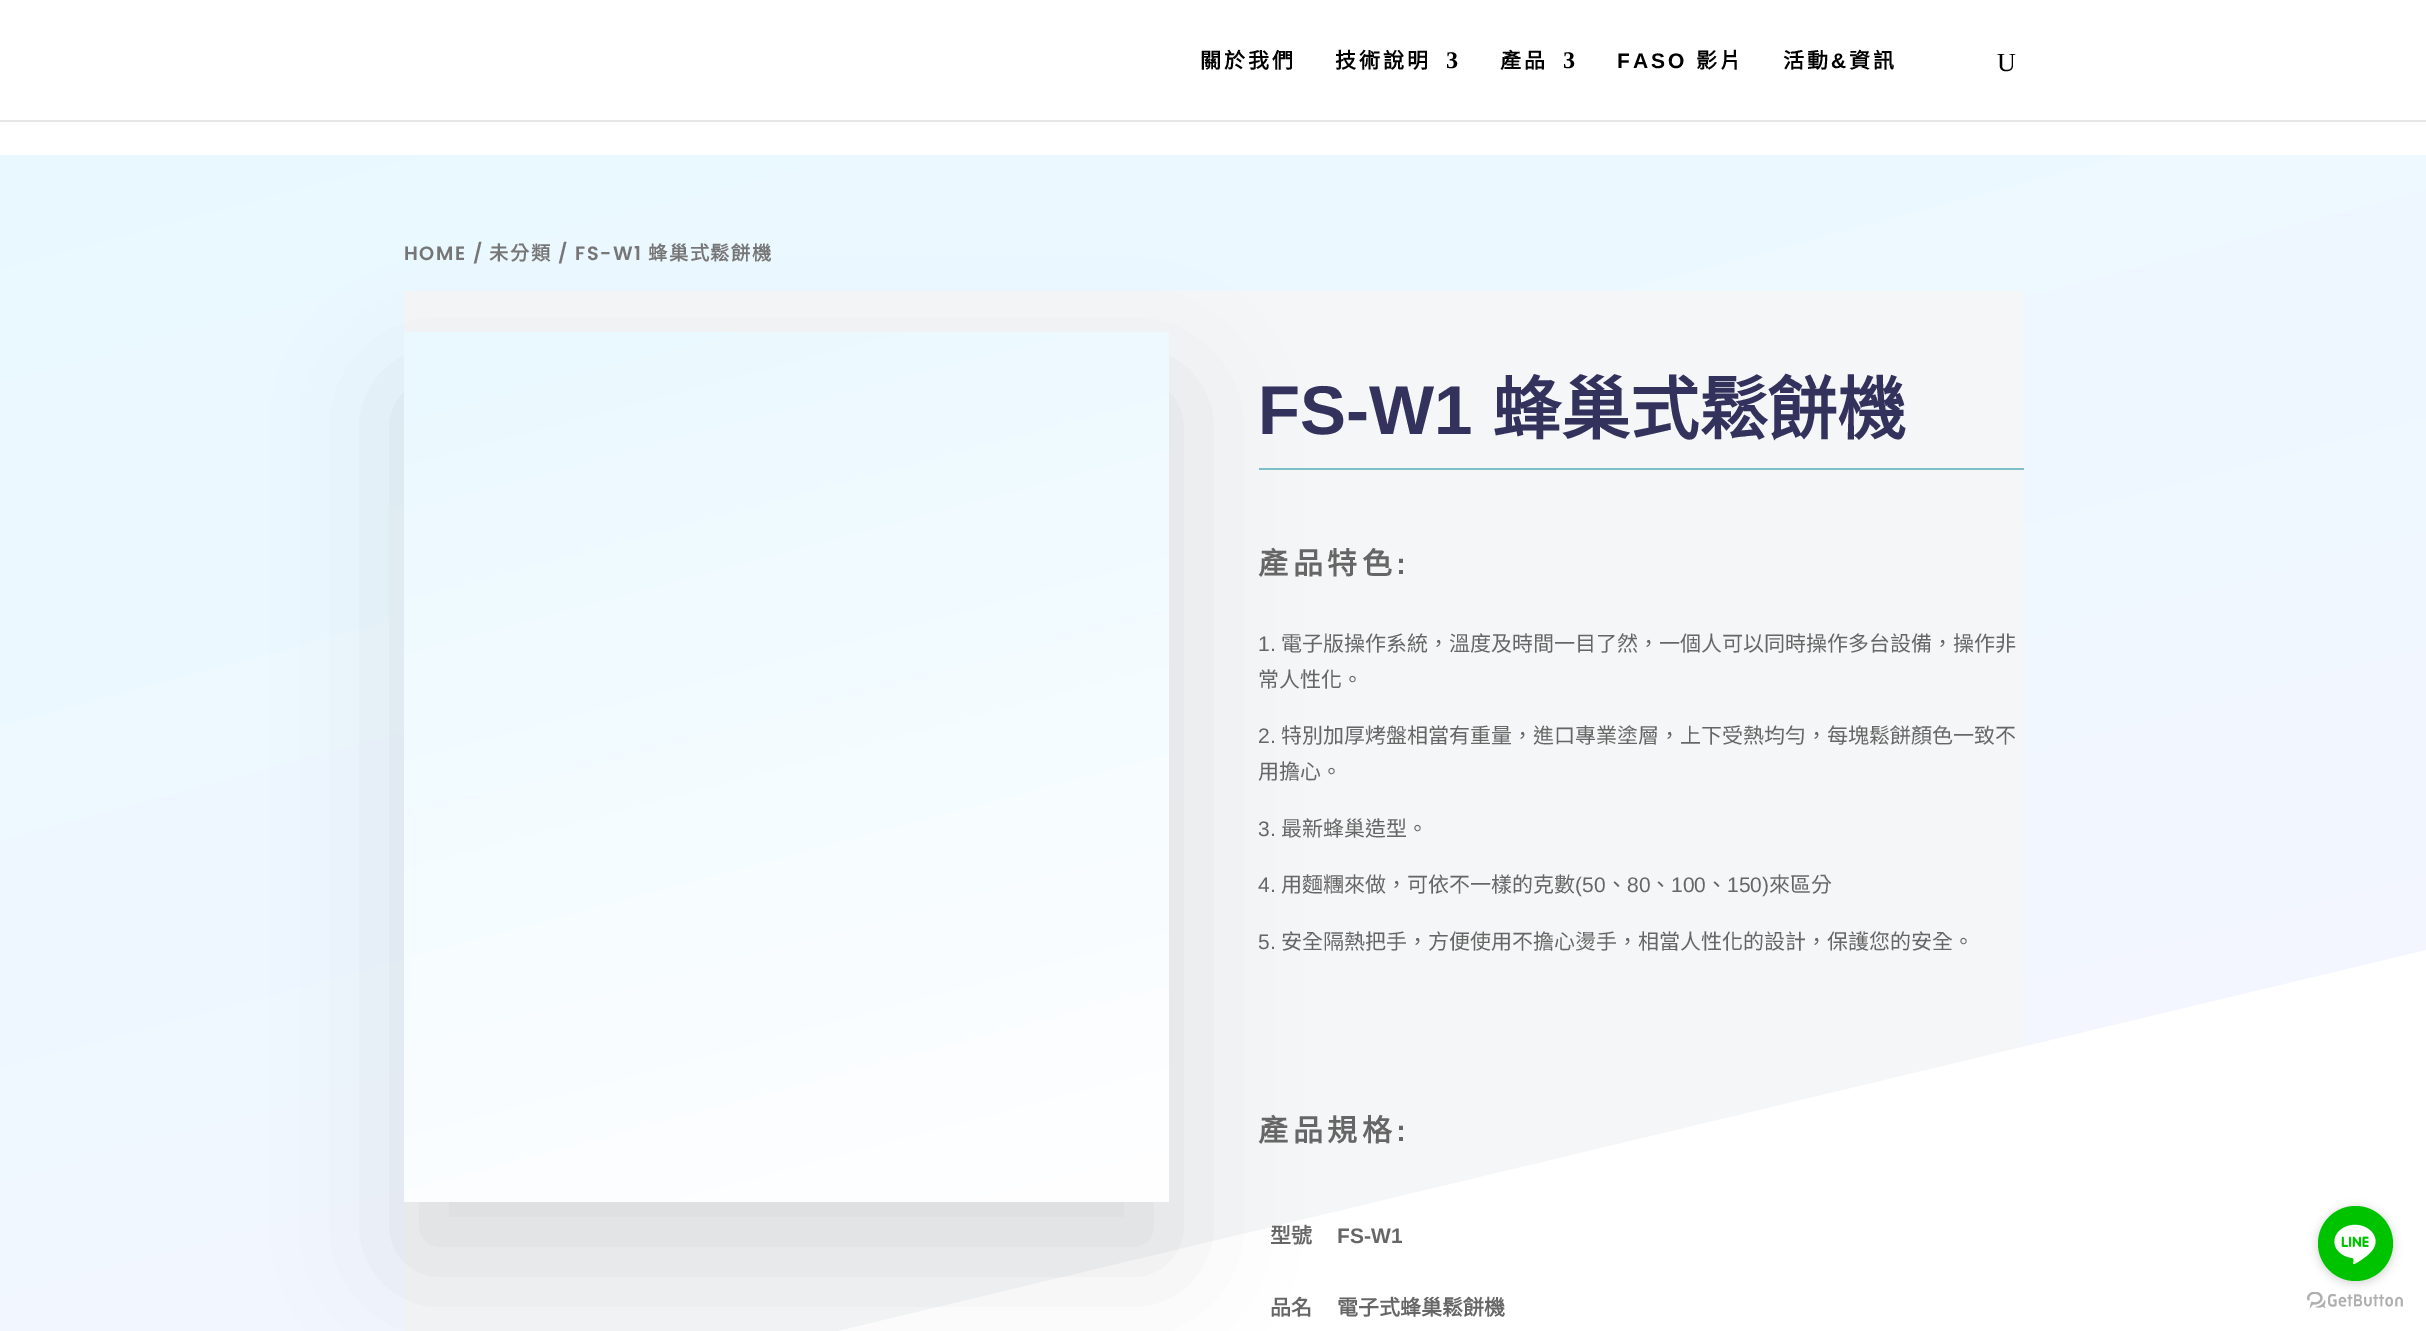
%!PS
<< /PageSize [2426 1331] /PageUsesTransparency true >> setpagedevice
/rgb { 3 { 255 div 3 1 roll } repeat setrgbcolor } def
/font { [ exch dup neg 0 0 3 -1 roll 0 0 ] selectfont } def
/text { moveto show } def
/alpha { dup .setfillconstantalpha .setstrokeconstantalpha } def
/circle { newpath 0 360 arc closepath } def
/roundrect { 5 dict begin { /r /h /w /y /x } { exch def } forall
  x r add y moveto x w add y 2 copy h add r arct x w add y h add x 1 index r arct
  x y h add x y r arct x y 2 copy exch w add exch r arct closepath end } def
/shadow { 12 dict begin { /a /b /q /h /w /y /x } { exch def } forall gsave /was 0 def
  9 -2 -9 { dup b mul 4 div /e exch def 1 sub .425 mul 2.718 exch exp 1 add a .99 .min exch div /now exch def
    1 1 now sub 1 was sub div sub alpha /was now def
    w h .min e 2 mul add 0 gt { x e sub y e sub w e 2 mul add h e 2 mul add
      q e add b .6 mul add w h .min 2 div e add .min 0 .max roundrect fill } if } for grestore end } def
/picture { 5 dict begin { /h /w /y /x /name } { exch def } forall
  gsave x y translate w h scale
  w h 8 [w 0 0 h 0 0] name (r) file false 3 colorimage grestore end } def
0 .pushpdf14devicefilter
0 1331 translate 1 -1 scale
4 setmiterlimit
255 255 255 rgb
0 0 2426 1331 rectfill
230 230 230 rgb
0 120 2426 2 rectfill
gsave 0 155 moveto 2426 0 rlineto 0 1176 rlineto -2426 0 rlineto closepath clip newpath
<< /ShadingType 2 /ColorSpace /DeviceRGB /Coords [960 -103 1467 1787] /Extend [true true] /Function << /FunctionType 2 /Domain [0 1] /C0 [0.914 0.976 1] /C1 [0.969 0.961 1] /N 1 >> >> shfill grestore
245 246 247 rgb
404 291 1620 1040 rectfill
255 255 255 rgb
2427 950 moveto 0 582 rlineto -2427 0 rlineto closepath fill
0 0 0 rgb
404 392 765 870 0 60 0.1 shadow
gsave 404 332 moveto 765 0 rlineto 0 870 rlineto -765 0 rlineto closepath clip newpath
<< /ShadingType 2 /ColorSpace /DeviceRGB /Coords [652 265 920 1268] /Extend [true true] /Function << /FunctionType 2 /Domain [0 1] /C0 [0.914 0.976 1] /C1 [1 1 1] /N 1 >> >> shfill grestore
126 190 197 rgb
1259 468 765 2 rectfill
(img_02.rgb) 2307 1292 96 16 picture
136 136 136 rgb
2318 1208 75 75 37.5 5 0.4 shadow
0 195 0 rgb
2355.5 1243.5 37.5 circle fill
(img_01.rgb) 2334 1224 42 40 picture
/NotoSansCJKTC-Bold 21 font
0 0 0 rgb
1200 68 moveto 3 0 (關於我們) ashow
1335 68 moveto 3 0 (技術說明) ashow
/LiberationSerif-Bold 24 font
1446 68 moveto 3 0 (3) ashow
/NotoSansCJKTC-Bold 21 font
1500 68 moveto 3 0 (產品) ashow
/LiberationSerif-Bold 24 font
1563 68 moveto 3 0 (3) ashow
/LiberationSans-Bold 21 font
1617 68 moveto 3 0 (FASO) ashow
/NotoSansCJKTC-Bold 21 font
1696 68 moveto 3 0 (影片) ashow
1783 68 moveto 3 0 (活動) ashow
/LiberationSans-Bold 21 font
1831 68 moveto 3 0 (&) ashow
/NotoSansCJKTC-Bold 21 font
1849 68 moveto 3 0 (資訊) ashow
/LiberationSerif-Regular 26 font
(U) 1997 71 text
/Poppins-SemiBold 19.25 font
118 118 118 rgb
404 260 moveto 1.5 0 (HOME /) ashow
/NotoSansCJKTC-Bold 19.25 font
489 260 moveto 1.5 0 (未分類) ashow
/Poppins-SemiBold 19.25 font
558 260 moveto 1.5 0 (/ FS-W1) ashow
/NotoSansCJKTC-Bold 19.25 font
648 260 moveto 1.5 0 (蜂巢式鬆餅機) ashow
/LiberationSans-Bold 69 font
50 50 93 rgb
(FS-W1) 1258 434 text
/NotoSansCJKTC-Bold 69 font
(蜂巢式鬆餅機) 1492 434 text
/NotoSansCJKTC-Bold 30 font
102 102 102 rgb
1258 574 moveto 4.5 0 (產品特色) ashow
/LiberationSans-Bold 30 font
1396 574 moveto 4.5 0 (:) ashow
/LiberationSans-Regular 21 font
(1.) 1258 651 text
/NotoSansCJKTC-Regular 21 font
(電子版操作系統，溫度及時間一目了然，一個人可以同時操作多台設備，操作非) 1281 651 text
(常人性化。) 1258 687 text
/LiberationSans-Regular 21 font
(2.) 1258 743 text
/NotoSansCJKTC-Regular 21 font
(特別加厚烤盤相當有重量，進口專業塗層，上下受熱均勻，每塊鬆餅顏色一致不) 1281 743 text
(用擔心。) 1258 779 text
/LiberationSans-Regular 21 font
(3.) 1258 836 text
/NotoSansCJKTC-Regular 21 font
(最新蜂巢造型。) 1281 836 text
/LiberationSans-Regular 21 font
(4.) 1258 892 text
/NotoSansCJKTC-Regular 21 font
(用麵糰來做，可依不一樣的克數) 1281 892 text
/LiberationSans-Regular 21 font
(\(50) 1575 892 text
/NotoSansCJKTC-Regular 21 font
(、) 1606 892 text
/LiberationSans-Regular 21 font
(80) 1627 892 text
/NotoSansCJKTC-Regular 21 font
(、) 1650 892 text
/LiberationSans-Regular 21 font
(100) 1671 892 text
/NotoSansCJKTC-Regular 21 font
(、) 1706 892 text
/LiberationSans-Regular 21 font
(150\)) 1727 892 text
/NotoSansCJKTC-Regular 21 font
(來區分) 1769 892 text
/LiberationSans-Regular 21 font
(5.) 1258 949 text
/NotoSansCJKTC-Regular 21 font
(安全隔熱把手，方便使用不擔心燙手，相當人性化的設計，保護您的安全。) 1281 949 text
/NotoSansCJKTC-Bold 30 font
1258 1141 moveto 4.5 0 (產品規格) ashow
/LiberationSans-Bold 30 font
1396 1141 moveto 4.5 0 (:) ashow
/NotoSansCJKTC-Bold 21 font
(型號) 1270 1243 text
/LiberationSans-Bold 21 font
(FS-W1) 1337 1243 text
/NotoSansCJKTC-Bold 21 font
(品名) 1270 1315 text
(電子式蜂巢鬆餅機) 1337 1315 text
.poppdf14devicefilter showpage
